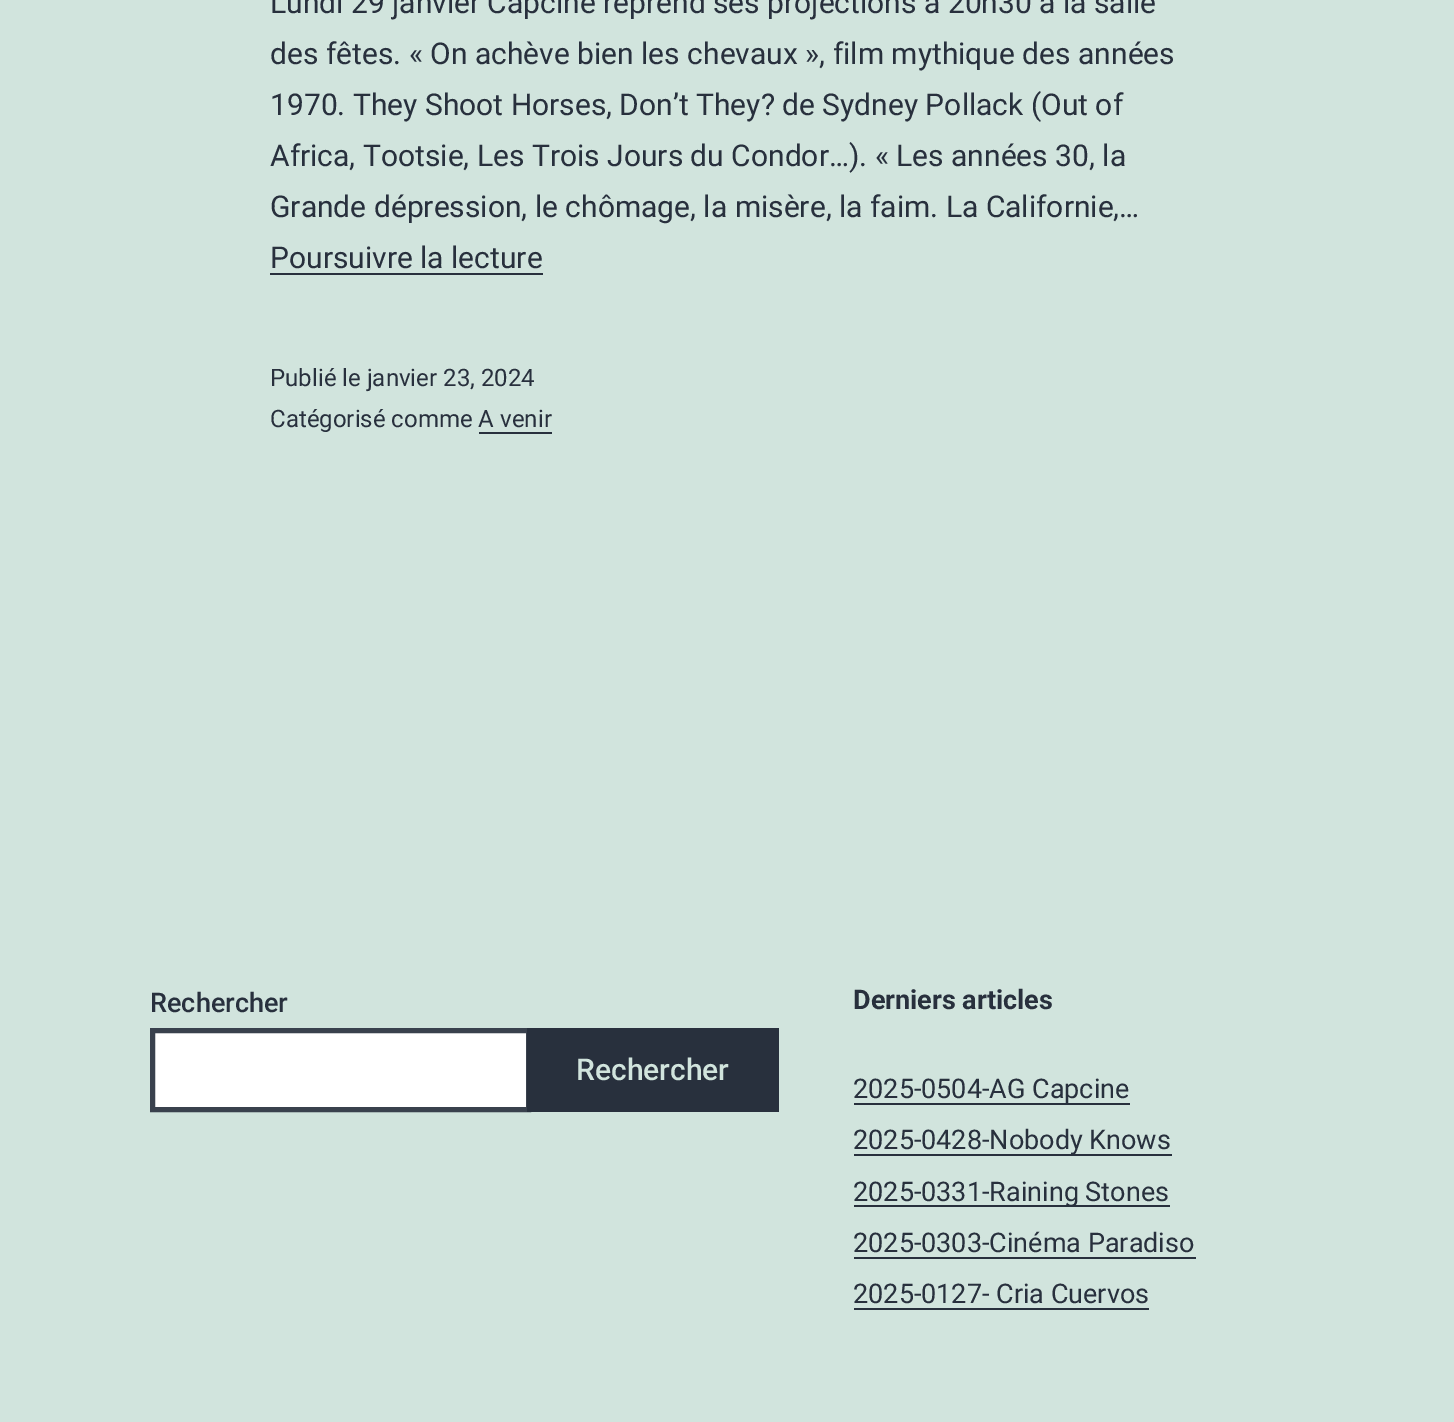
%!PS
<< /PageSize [1454 1422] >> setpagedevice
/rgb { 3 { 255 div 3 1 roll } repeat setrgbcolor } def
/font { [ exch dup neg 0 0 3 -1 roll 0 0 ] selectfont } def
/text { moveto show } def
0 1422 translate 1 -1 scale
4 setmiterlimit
209 228 221 rgb
0 0 1454 1422 rectfill
40 48 61 rgb
270 273 273 2 rectfill
479 432 73 2 rectfill
255 255 255 rgb
152.5 1030.5 moveto 376 0 rlineto 0 79 rlineto -376 0 rlineto closepath gsave fill grestore
57 65 77 rgb
5 setlinewidth
stroke
40 48 61 rgb
527 1028 252 84 rectfill
854 1103 276 2 rectfill
854 1154 318 2 rectfill
854 1205 316 2 rectfill
854 1257 342 2 rectfill
854 1308 295 2 rectfill
/Roboto-Regular 30 font
(Lundi 29 janvier Capciné reprend ses projections à 20h30 à la salle) 270 13 text
(des fêtes. « On achève bien les chevaux », film mythique des années) 270 64 text
(1970. They Shoot Horses, Don’t They? de Sydney Pollack \(Out of) 270 115 text
(Africa, Tootsie, Les Trois Jours du Condor…\). « Les années 30, la) 270 166 text
(Grande dépression, le chômage, la misère, la faim. La Californie,…) 270 217 text
(Poursuivre la lecture) 270 268 text
/Roboto-Regular 24 font
(Publié le janvier 23, 2024) 270 386 text
(Catégorisé comme A venir) 270 427 text
/Roboto-Medium 27 font
(Rechercher) 150 1012 text
/Roboto-Medium 30 font
209 228 221 rgb
(Rechercher) 576 1080 text
/Roboto-Bold 27 font
40 48 61 rgb
(Derniers articles) 853 1009 text
/Roboto-Regular 27 font
(2025-0504-AG Capcine) 853 1098 text
(2025-0428-Nobody Knows) 853 1149 text
(2025-0331-Raining Stones) 853 1201 text
(2025-0303-Cinéma Paradiso) 853 1252 text
(2025-0127- Cria Cuervos) 853 1303 text
showpage
